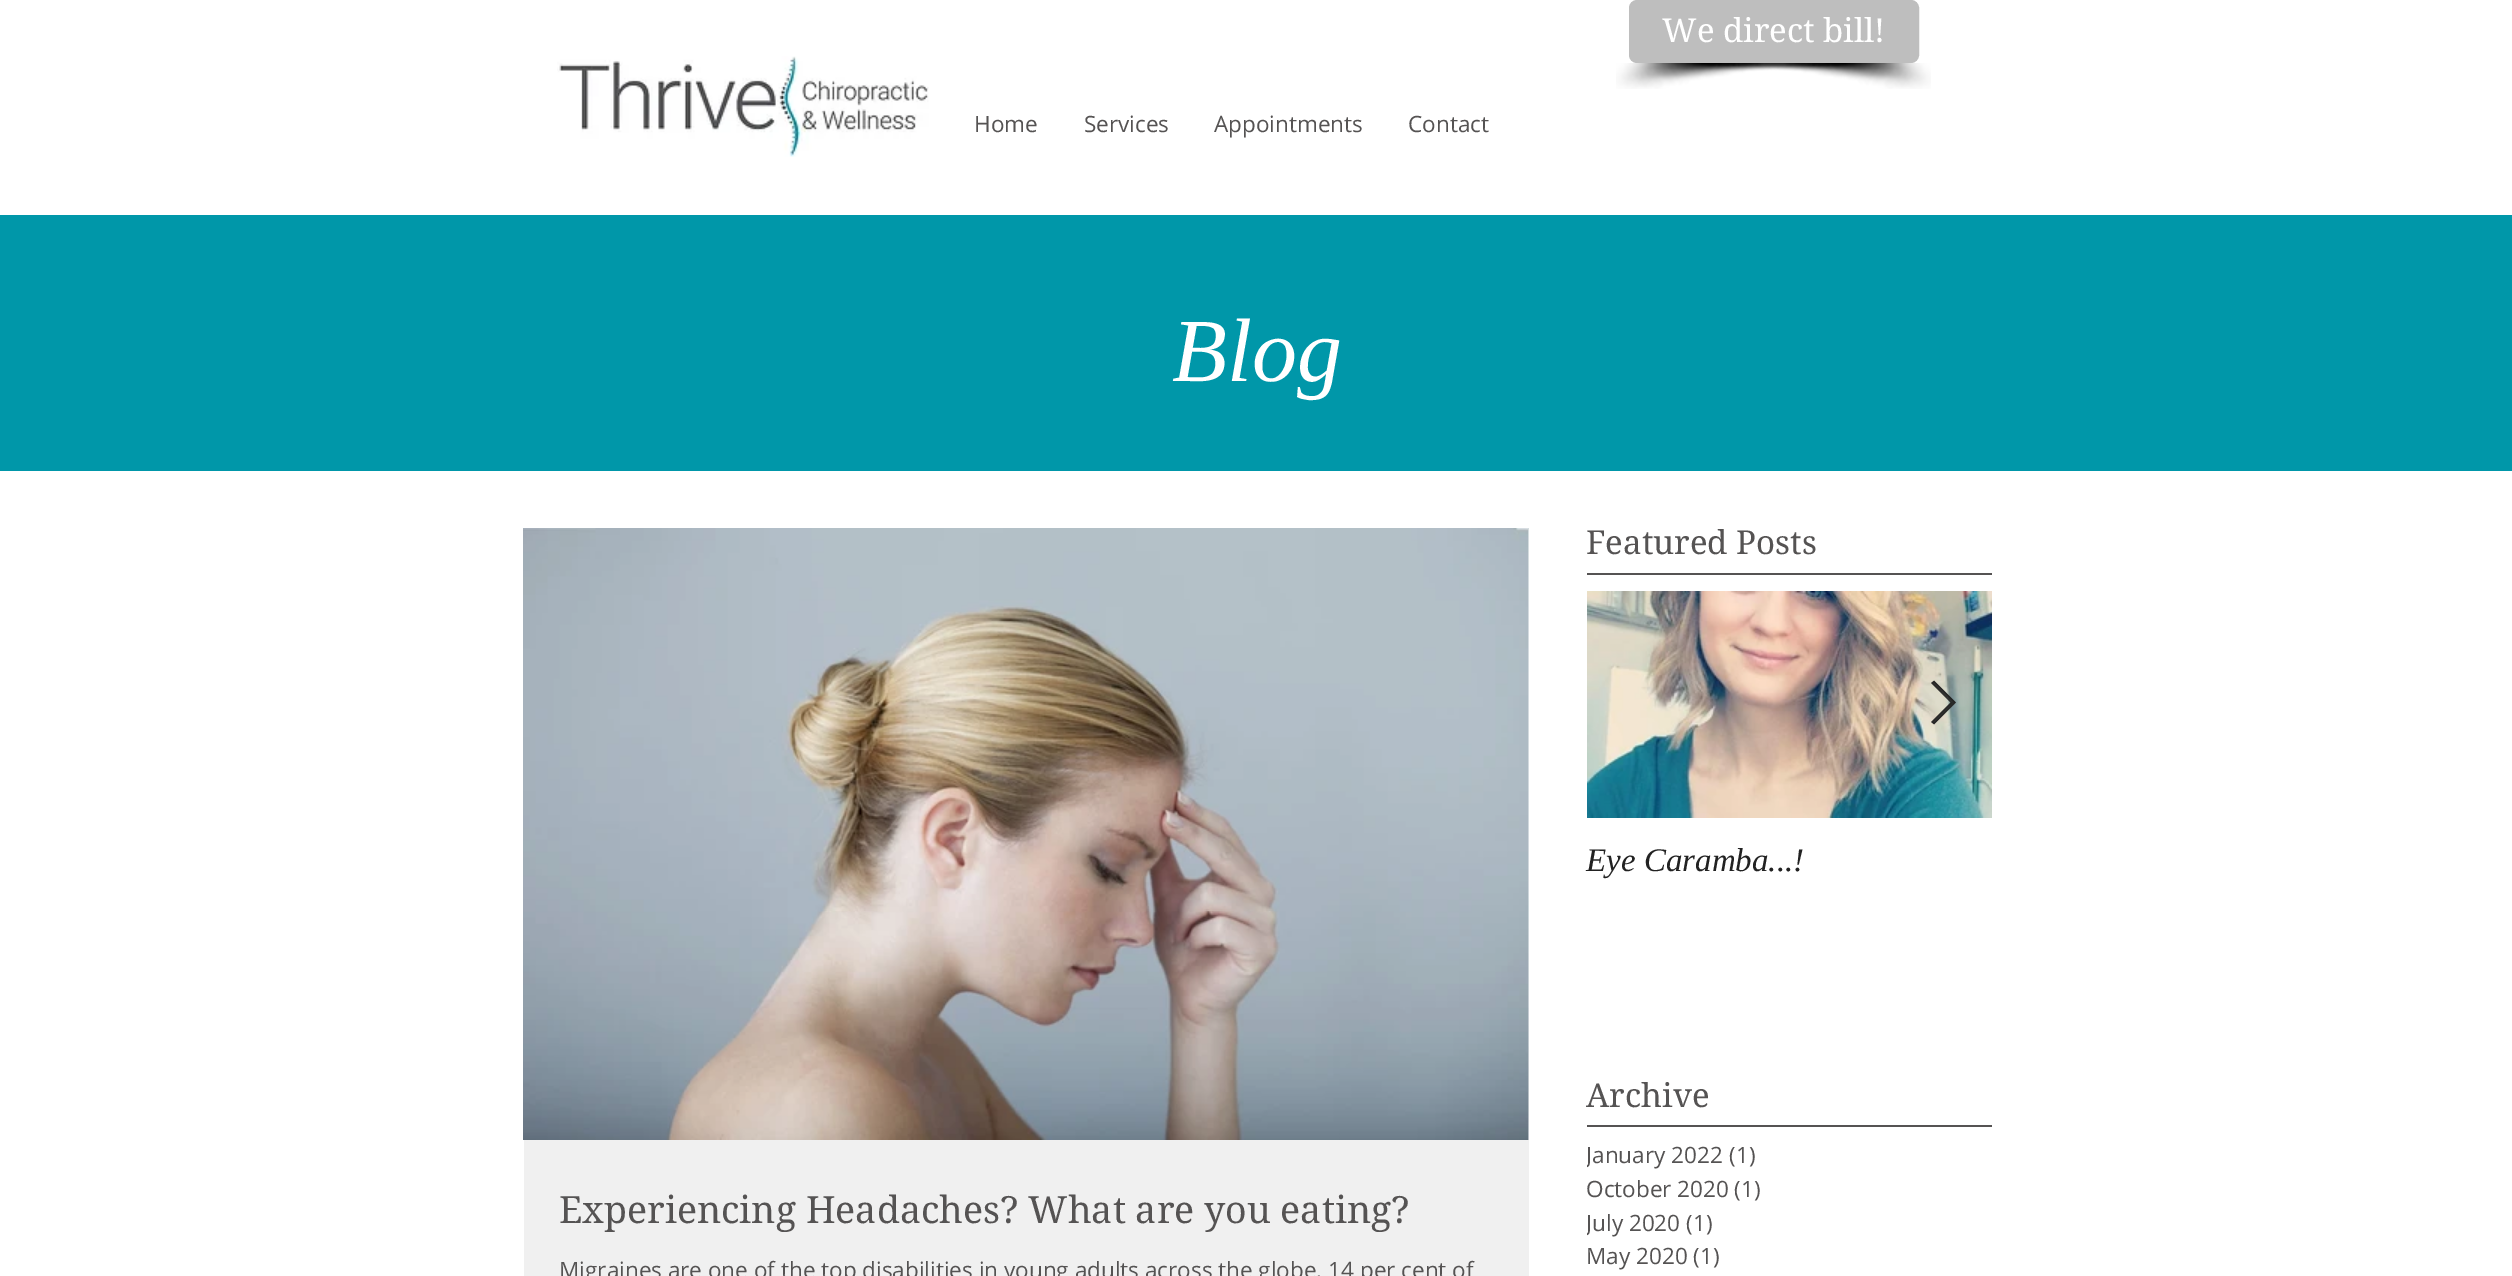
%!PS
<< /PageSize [2512 1276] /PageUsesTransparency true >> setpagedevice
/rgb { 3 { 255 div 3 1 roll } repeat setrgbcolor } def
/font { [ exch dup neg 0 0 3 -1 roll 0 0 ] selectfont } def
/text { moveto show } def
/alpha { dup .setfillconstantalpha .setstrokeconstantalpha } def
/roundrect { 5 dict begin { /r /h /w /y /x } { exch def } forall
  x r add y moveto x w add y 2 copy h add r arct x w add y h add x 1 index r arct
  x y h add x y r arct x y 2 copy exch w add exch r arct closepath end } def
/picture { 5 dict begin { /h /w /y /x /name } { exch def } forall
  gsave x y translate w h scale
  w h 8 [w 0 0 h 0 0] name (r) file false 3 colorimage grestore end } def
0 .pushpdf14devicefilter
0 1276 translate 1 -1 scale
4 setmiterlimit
255 255 255 rgb
0 0 2512 1276 rectfill
190 190 190 rgb
1630 1 288 61 7 roundrect gsave fill grestore
2 setlinewidth
stroke
(img_01.rgb) 1616 63 231 26 picture
(img_02.rgb) 1738 63 193 26 picture
(img_03.rgb) 557 56 372 101 picture
0 151 169 rgb
0 215 2512 256 rectfill
85 83 83 rgb
1587 573 405 2 rectfill
(img_04.rgb) 1587 591 405 227 picture
0.9 alpha
34 34 34 rgb
1932 683 moveto 2 -2 rlineto 21 21 rlineto -21 22 rlineto -2 -2 rlineto 20 -20 rlineto closepath fill
1.2 setlinewidth
1932 683 moveto 2 -1.5 rlineto 21 21 rlineto -21 21 rlineto -2 -1.5 rlineto 19.5 -19.5 rlineto closepath stroke
1 alpha
85 83 83 rgb
1587 1125 405 2 rectfill
(img_05.rgb) 523 528 1005 612 picture
(img_06.rgb) 1528 528 1 612 picture
240 240 240 rgb
524 1140 1005 136 rectfill
/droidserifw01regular-Regular 33 font
255 255 255 rgb
(We direct bill!) 1662 42 text
/OpenSans-Regular 22.5 font
85 83 83 rgb
(Home) 974 132 text
(Services) 1084 132 text
(Appointments) 1214 132 text
(Contact) 1408 132 text
/LiberationSerif-Italic 90 font
255 255 255 rgb
(Blog) 1172 381 text
/droidserifw01regular-Regular 33 font
85 83 83 rgb
(Featured Posts) 1586 554 text
/LiberationSerif-Italic 33 font
34 34 34 rgb
(Eye Caramba...!) 1586 871 text
/droidserifw01regular-Regular 33 font
85 83 83 rgb
(Archive) 1586 1107 text
/droidserifw01regular-Regular 37.5 font
(Experiencing Headaches? What are you eating?) 559 1223 text
/OpenSans-Regular 22.5 font
(Migraines are one of the top disabilities in young adults across the globe. 14 per cent of) 559 1278 text
gsave
1587 1137 168 35 rectclip
(January 2022) 1586 1163 text
grestore
(\(1\)) 1729 1163 text
(October 2020 \(1\)) 1586 1197 text
gsave
1587 1205 126 34 rectclip
(July 2020) 1586 1231 text
grestore
(\(1\)) 1686 1231 text
(May 2020 \(1\)) 1586 1264 text
.poppdf14devicefilter showpage
